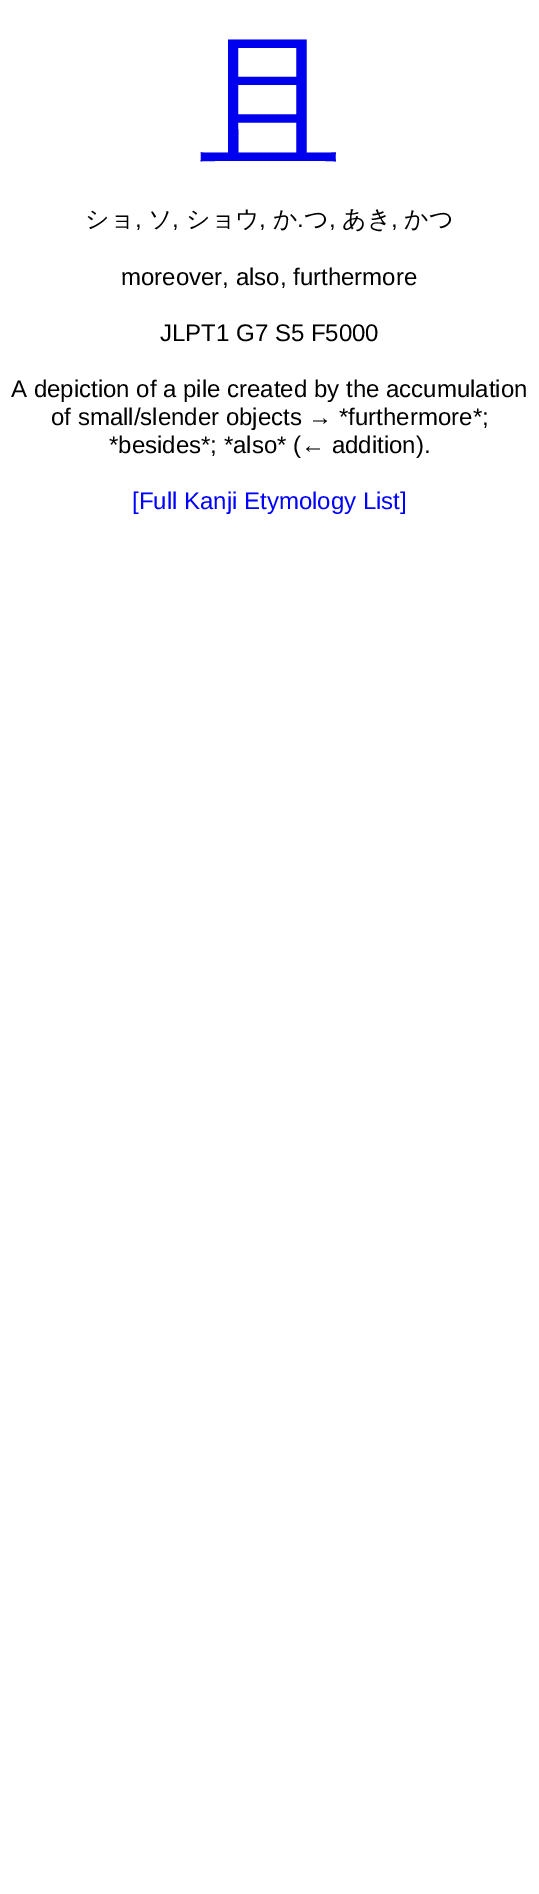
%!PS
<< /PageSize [539 1894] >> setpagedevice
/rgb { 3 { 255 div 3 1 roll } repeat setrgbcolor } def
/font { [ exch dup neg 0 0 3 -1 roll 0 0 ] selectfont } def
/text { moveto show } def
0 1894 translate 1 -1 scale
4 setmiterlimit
255 255 255 rgb
0 0 539 1894 rectfill
/WenQuanYiZenHei-Medium 144 font
0 0 238 rgb
(且) 198 153 text
/WenQuanYiZenHei-Medium 24 font
0 0 0 rgb
(ショ) 85 227 text
/LiberationSans-Regular 24 font
(,) 135 227 text
/WenQuanYiZenHei-Medium 24 font
(ソ) 148 227 text
/LiberationSans-Regular 24 font
(,) 172 227 text
/WenQuanYiZenHei-Medium 24 font
(ショウ) 186 227 text
/LiberationSans-Regular 24 font
(,) 259 227 text
/WenQuanYiZenHei-Medium 24 font
(か) 273 227 text
/LiberationSans-Regular 24 font
(.) 297 227 text
/WenQuanYiZenHei-Medium 24 font
(つ) 304 227 text
/LiberationSans-Regular 24 font
(,) 329 227 text
/WenQuanYiZenHei-Medium 24 font
(あき) 342 227 text
/LiberationSans-Regular 24 font
(,) 391 227 text
/WenQuanYiZenHei-Medium 24 font
(かつ) 404 227 text
/LiberationSans-Regular 24 font
(moreover, also, furthermore) 121 285 text
(JLPT1 G7 S5 F5000) 160 341 text
(A depiction of a pile created by the accumulation) 11 397 text
(of small/slender objects → *furthermore*;) 51 425 text
(*besides*; *also* \(← addition\).) 109 453 text
0 0 255 rgb
([Full Kanji Etymology List]) 132 509 text
showpage
